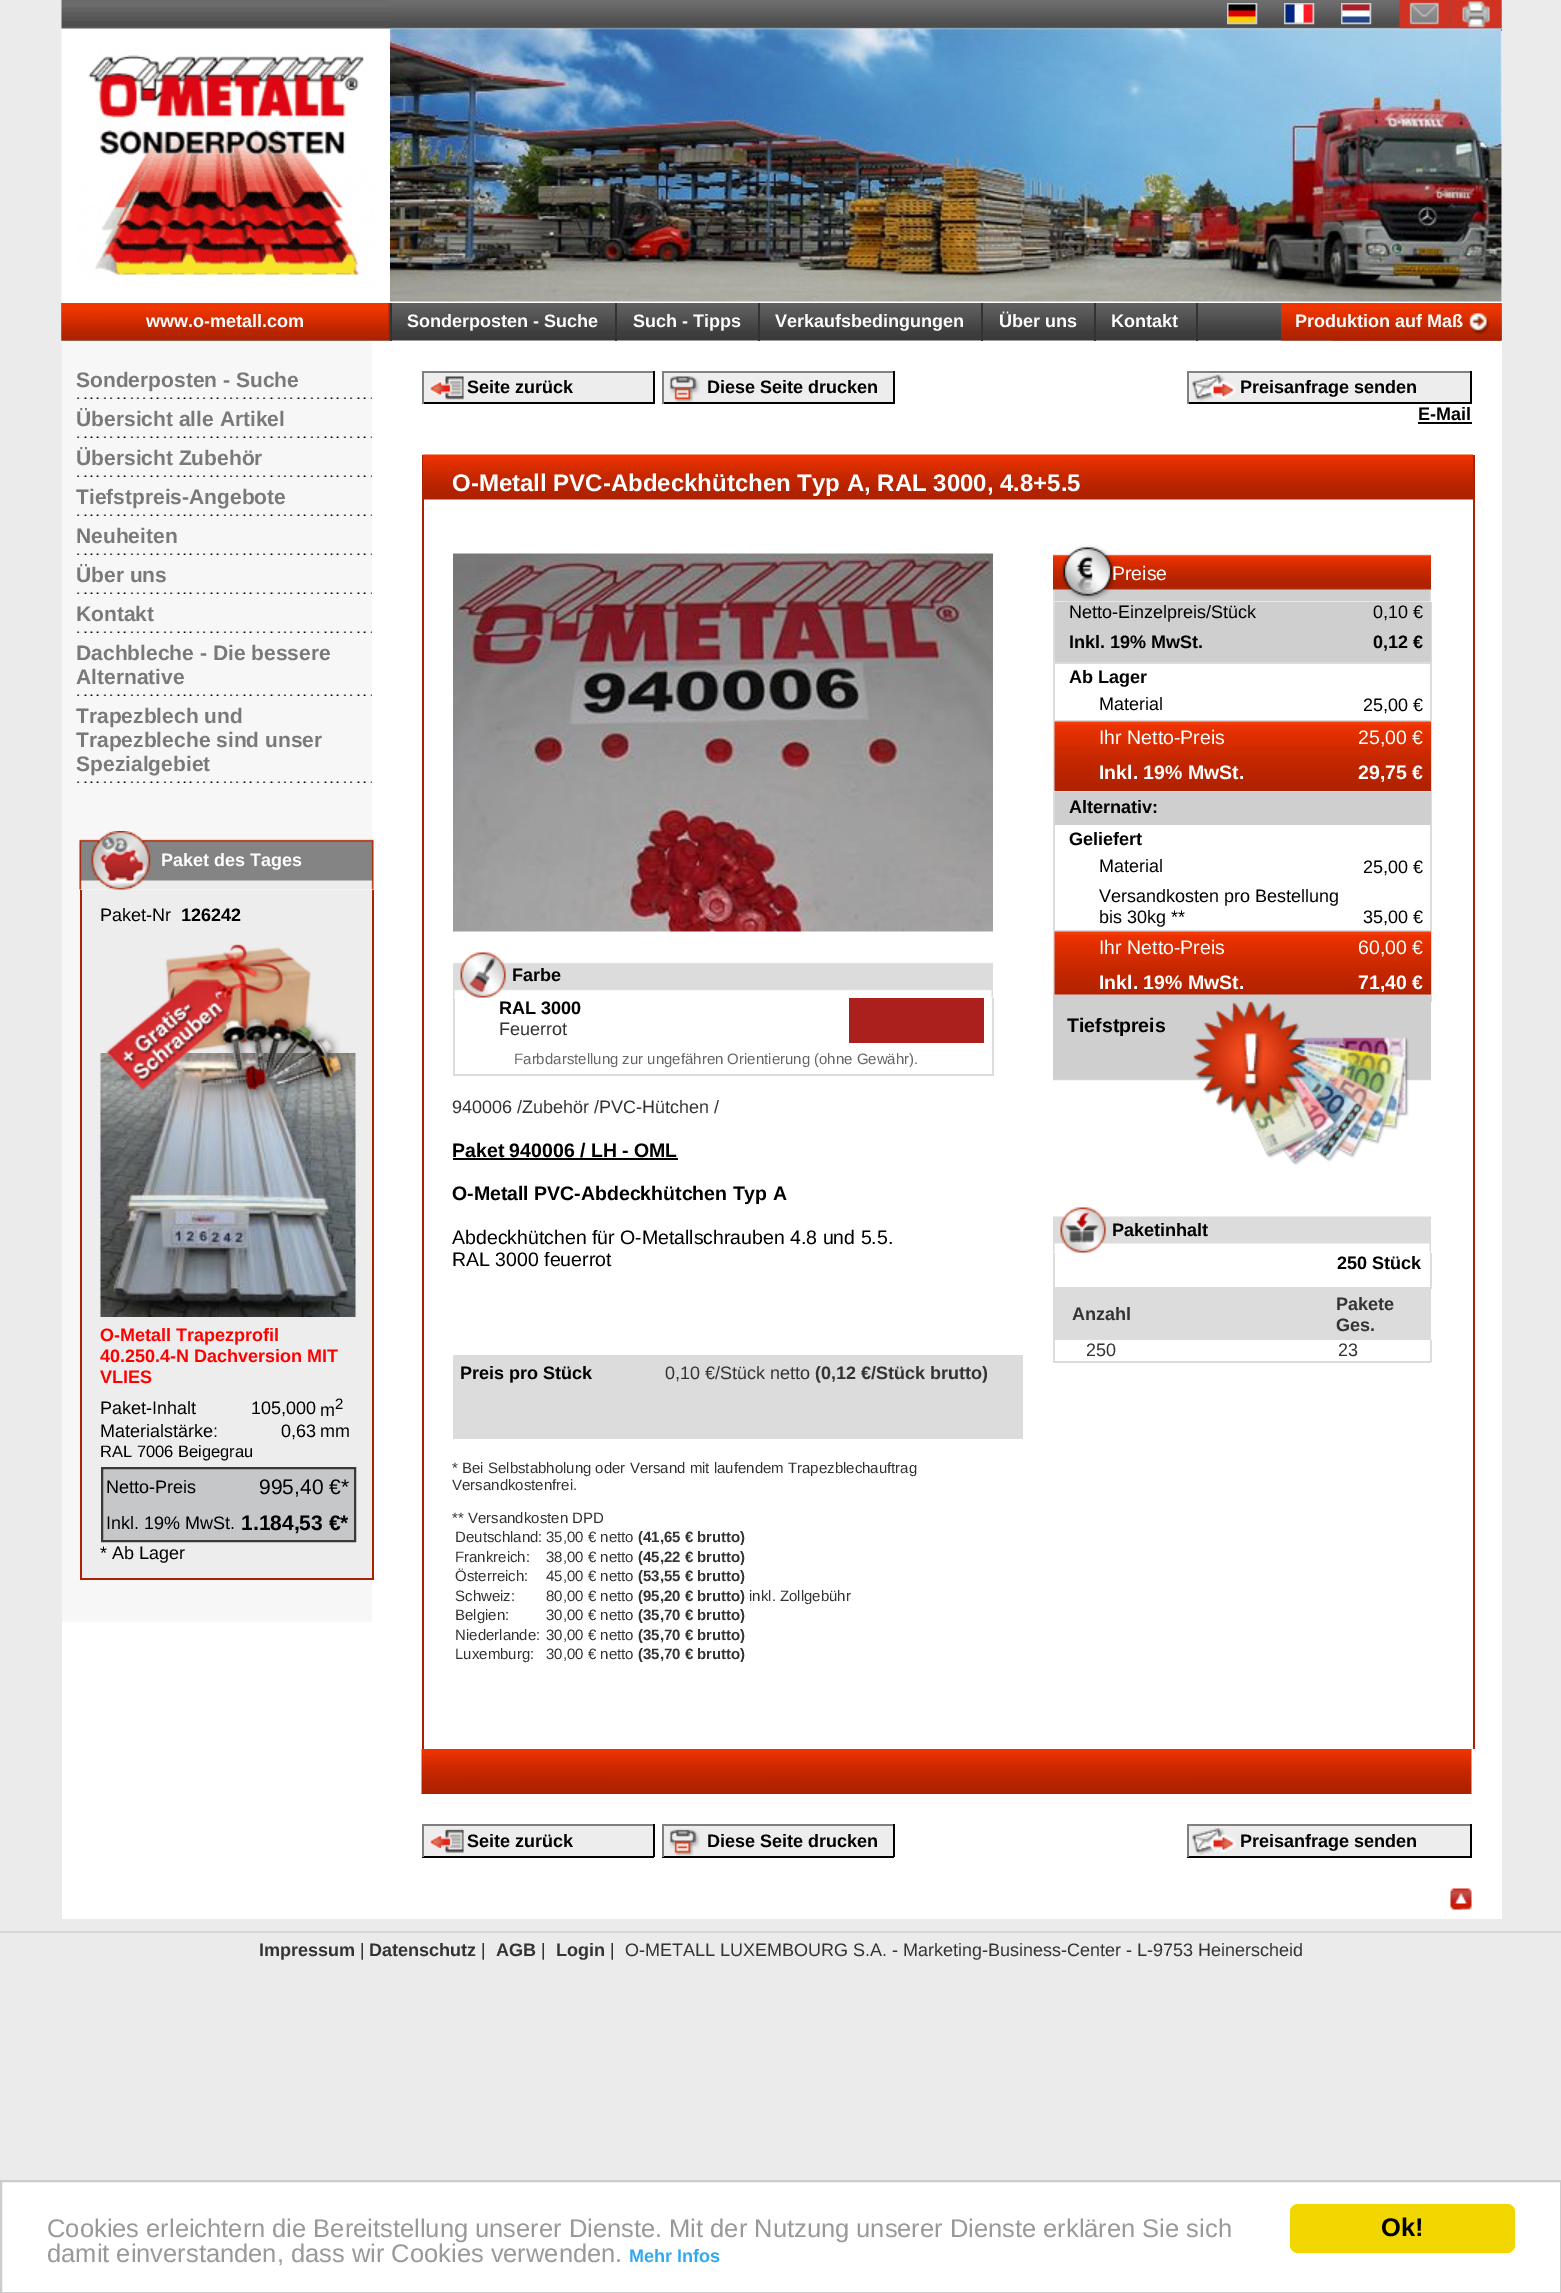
%!PS
<< /PageSize [1561 2293] >> setpagedevice
/rgb { 3 { 255 div 3 1 roll } repeat setrgbcolor } def
/font { [ exch dup neg 0 0 3 -1 roll 0 0 ] selectfont } def
/text { moveto show } def
/roundrect { 5 dict begin { /r /h /w /y /x } { exch def } forall
  x r add y moveto x w add y 2 copy h add r arct x w add y h add x 1 index r arct
  x y h add x y r arct x y 2 copy exch w add exch r arct closepath end } def
/picture { 5 dict begin { /h /w /y /x /name } { exch def } forall
  gsave x y translate w h scale
  w h 8 [w 0 0 h 0 0] name (r) file false 3 colorimage grestore end } def
0 2293 translate 1 -1 scale
4 setmiterlimit
235 235 235 rgb
0 0 1561 2293 rectfill
255 255 255 rgb
62 0 1440 1919 rectfill
(img_01.rgb) 61 0 329 302 picture
(img_02.rgb) 390 0 1112 29 picture
51 51 51 rgb
1501 29 1 2 rectfill
204 204 204 rgb
2 setlinewidth
1228 4 28 19 rectstroke
1285 4 28 19 rectstroke
1342 4 28 19 rectstroke
(img_03.rgb) 1399 0 52 29 picture
(img_04.rgb) 1450 0 52 29 picture
(img_05.rgb) 1228 4 28 19 picture
(img_06.rgb) 1285 4 28 19 picture
(img_07.rgb) 1342 4 28 19 picture
(img_08.rgb) 390 28 1112 274 picture
(img_09.rgb) 61 303 1441 38 picture
(img_10.rgb) 61 303 329 38 picture
51 51 51 rgb
390 303 2 38 rectfill
615 303 2 38 rectfill
758 303 2 38 rectfill
981 303 2 38 rectfill
1094 303 2 38 rectfill
1196 303 2 38 rectfill
(img_11.rgb) 1281 303 221 38 picture
(img_12.rgb) 1332 303 170 38 picture
247 247 247 rgb
62 341 310 1281 rectfill
(img_13.rgb) 77 397 295 2 picture
(img_13.rgb) 77 436 295 2 picture
(img_13.rgb) 77 475 295 2 picture
(img_13.rgb) 77 514 295 2 picture
(img_13.rgb) 77 553 295 2 picture
(img_13.rgb) 77 592 295 2 picture
(img_13.rgb) 77 631 295 2 picture
(img_13.rgb) 77 694 295 2 picture
(img_13.rgb) 77 781 295 2 picture
(img_14.rgb) 79 831 295 59 picture
237 237 238 rgb
82 890 290 688 rectfill
173 33 0 rgb
372 890 2 690 rectfill
80 1578 294 2 rectfill
80 890 2 690 rectfill
(img_16.rgb) 100 1053 256 264 picture
(img_15.rgb) 106 944 242 153 picture
198 199 200 rgb
102 1468 moveto 253 0 rlineto 0 73 rlineto -253 0 rlineto closepath gsave fill grestore
57 57 57 rgb
stroke
237 237 237 rgb
424 373 229 29 rectfill
(img_17.rgb) 429 376 35 24 picture
128 128 128 rgb
422 371 232 2 rectfill
0 0 0 rgb
653 371 2 33 rectfill
422 402 232 2 rectfill
128 128 128 rgb
422 371 2 33 rectfill
237 237 237 rgb
664 373 229 29 rectfill
(img_18.rgb) 669 376 31 26 picture
128 128 128 rgb
662 371 232 2 rectfill
0 0 0 rgb
893 371 2 33 rectfill
662 402 232 2 rectfill
128 128 128 rgb
662 371 2 33 rectfill
237 237 237 rgb
1189 373 281 29 rectfill
(img_19.rgb) 1192 374 44 28 picture
128 128 128 rgb
1187 371 285 2 rectfill
0 0 0 rgb
1470 371 2 33 rectfill
1187 402 285 2 rectfill
128 128 128 rgb
1187 371 2 33 rectfill
0 0 0 rgb
1418 422 54 2 rectfill
173 33 0 rgb
1473 455 2 1294 rectfill
422 455 2 1294 rectfill
(img_20.rgb) 423 454 1050 46 picture
(img_21.rgb) 453 553 540 379 picture
(img_22.rgb) 453 952 540 46 picture
220 220 220 rgb
992 998 2 78 rectfill
453 1074 540 2 rectfill
453 998 2 78 rectfill
171 31 28 rgb
849 998 135 45 rectfill
0 0 0 rgb
453 1158 225 2 rectfill
220 220 220 rgb
453 1355 570 84 rectfill
(img_23.rgb) 1053 545 378 57 picture
1431 602 1 61 rectfill
1053 662 378 2 rectfill
1053 602 2 61 rectfill
207 207 207 rgb
1055 602 376 60 rectfill
220 220 220 rgb
1430 663 2 59 rectfill
1053 720 378 2 rectfill
1053 663 2 59 rectfill
1431 722 1 70 rectfill
1053 791 378 1 rectfill
1053 722 2 70 rectfill
174 34 0 rgb
1055 790 376 1 rectfill
(img_24.rgb) 1054 721 377 70 picture
220 220 220 rgb
1430 792 2 140 rectfill
1053 930 378 2 rectfill
1053 792 2 210 rectfill
207 207 207 rgb
1055 792 376 33 rectfill
220 220 220 rgb
1431 932 1 70 rectfill
(img_25.rgb) 1054 931 377 64 picture
(img_26.rgb) 1053 994 378 172 picture
(img_27.rgb) 1053 1207 378 46 picture
1430 1253 2 36 rectfill
1053 1287 378 53 rectfill
1053 1253 2 36 rectfill
1430 1340 2 22 rectfill
1053 1361 378 2 rectfill
1053 1340 2 22 rectfill
(img_28.rgb) 421 1749 1051 45 picture
237 237 237 rgb
424 1826 229 30 rectfill
(img_29.rgb) 429 1829 35 24 picture
128 128 128 rgb
422 1824 232 2 rectfill
0 0 0 rgb
653 1824 2 33 rectfill
422 1856 232 2 rectfill
128 128 128 rgb
422 1824 2 33 rectfill
237 237 237 rgb
664 1826 229 30 rectfill
(img_30.rgb) 669 1829 31 27 picture
128 128 128 rgb
662 1824 232 2 rectfill
0 0 0 rgb
893 1824 2 33 rectfill
662 1856 232 2 rectfill
128 128 128 rgb
662 1824 2 33 rectfill
237 237 237 rgb
1189 1826 281 30 rectfill
(img_31.rgb) 1192 1828 44 28 picture
128 128 128 rgb
1187 1824 285 2 rectfill
0 0 0 rgb
1470 1824 2 33 rectfill
1187 1856 285 2 rectfill
128 128 128 rgb
1187 1824 2 33 rectfill
(img_32.rgb) 1450 1888 22 22 picture
213 213 213 rgb
0 1931 1561 2 rectfill
255 255 255 rgb
1 2181 moveto 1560 0 rlineto 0 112 rlineto -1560 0 rlineto closepath gsave fill grestore
204 204 204 rgb
stroke
241 214 0 rgb
1290 2204 225 49 8 roundrect fill
/LiberationSans-Bold 18 font
255 255 255 rgb
(www.o-metall.com) 146 327 text
(Sonderposten - Suche) 407 327 text
(Such - Tipps) 633 327 text
(Verkaufsbedingungen) 775 327 text
(Über uns) 999 327 text
(Kontakt) 1111 327 text
(Produktion auf Maß) 1295 327 text
/LiberationSans-Bold 21 font
120 121 123 rgb
(Sonderposten - Suche) 76 387 text
(Übersicht alle Artikel) 76 426 text
(Übersicht Zubehör) 76 465 text
(Tiefstpreis-Angebote) 76 504 text
(Neuheiten) 76 543 text
(Über uns) 76 582 text
(Kontakt) 76 621 text
(Dachbleche - Die bessere) 76 660 text
(Alternative) 76 684 text
(Trapezblech und) 76 723 text
(Trapezbleche sind unser) 76 747 text
(Spezialgebiet) 76 771 text
/LiberationSans-Bold 18 font
255 255 255 rgb
(Paket des Tages) 161 866 text
/LiberationSans-Regular 18 font
0 0 0 rgb
(Paket-Nr) 100 921 text
/LiberationSans-Bold 18 font
(126242) 181 921 text
255 0 0 rgb
(O-Metall Trapezprofil) 100 1341 text
(40.250.4-N Dachversion MIT) 100 1362 text
(VLIES) 100 1383 text
/LiberationSans-Regular 18 font
0 0 0 rgb
(Paket-Inhalt) 100 1414 text
(105,000) 251 1414 text
/LiberationSans-Regular 15 font
(2) 335 1409 text
/LiberationSans-Regular 18 font
(m) 320 1416 text
(Materialstärke:) 100 1437 text
(0,63) 281 1437 text
(mm) 320 1437 text
/LiberationSans-Regular 16.5 font
(RAL 7006 Beigegrau) 100 1457 text
/LiberationSans-Regular 18 font
(Netto-Preis) 106 1493 text
/LiberationSans-Regular 21 font
(995,40 €*) 259 1494 text
/LiberationSans-Regular 18 font
(Inkl. 19% MwSt.) 106 1529 text
/LiberationSans-Bold 21 font
(1.184,53 €*) 241 1530 text
/LiberationSans-Regular 18 font
(* Ab Lager) 100 1559 text
/LiberationSans-Bold 18 font
(Seite zurück) 467 393 text
(Diese Seite drucken) 707 393 text
(Preisanfrage senden) 1240 393 text
(E-Mail) 1418 420 text
/LiberationSans-Bold 24 font
255 255 255 rgb
(O-Metall PVC-Abdeckhütchen Typ A, RAL 3000, 4.8+5.5) 452 491 text
/LiberationSans-Bold 18 font
0 0 0 rgb
(Farbe) 512 981 text
(RAL 3000) 499 1014 text
/LiberationSans-Regular 18 font
51 51 51 rgb
(Feuerrot) 499 1035 text
/LiberationSans-Regular 15 font
102 102 102 rgb
(Farbdarstellung zur ungefähren Orientierung \(ohne Gewähr\).) 514 1064 text
/LiberationSans-Regular 18 font
51 51 51 rgb
(940006 /Zubehör /PVC-Hütchen /) 452 1113 text
/LiberationSans-Bold 19.5 font
0 0 0 rgb
(Paket 940006 / LH - OML) 452 1157 text
(O-Metall PVC-Abdeckhütchen Typ A) 452 1200 text
/LiberationSans-Regular 19.5 font
(Abdeckhütchen für O-Metallschrauben 4.8 und 5.5.) 452 1244 text
(RAL 3000 feuerrot) 452 1266 text
/LiberationSans-Bold 18 font
(Preis pro Stück) 460 1379 text
/LiberationSans-Regular 18 font
51 51 51 rgb
(0,10 €/Stück netto) 665 1379 text
/LiberationSans-Bold 18 font
(\(0,12 €/Stück brutto\)) 815 1379 text
/LiberationSans-Regular 15 font
(* Bei Selbstabholung oder Versand mit laufendem Trapezblechauftrag) 452 1473 text
(Versandkostenfrei.) 452 1490 text
(** Versandkosten DPD) 452 1523 text
(Deutschland:) 455 1542 text
(35,00 € netto) 546 1542 text
/LiberationSans-Bold 15 font
(\(41,65 € brutto\)) 638 1542 text
/LiberationSans-Regular 15 font
(Frankreich:) 455 1562 text
(38,00 € netto) 546 1562 text
/LiberationSans-Bold 15 font
(\(45,22 € brutto\)) 638 1562 text
/LiberationSans-Regular 15 font
(Österreich:) 455 1581 text
(45,00 € netto) 546 1581 text
/LiberationSans-Bold 15 font
(\(53,55 € brutto\)) 638 1581 text
/LiberationSans-Regular 15 font
(Schweiz:) 455 1601 text
(80,00 € netto) 546 1601 text
/LiberationSans-Bold 15 font
(\(95,20 € brutto\)) 638 1601 text
/LiberationSans-Regular 15 font
(inkl. Zollgebühr) 749 1601 text
(Belgien:) 455 1620 text
(30,00 € netto) 546 1620 text
/LiberationSans-Bold 15 font
(\(35,70 € brutto\)) 638 1620 text
/LiberationSans-Regular 15 font
(Niederlande:) 455 1640 text
(30,00 € netto) 546 1640 text
/LiberationSans-Bold 15 font
(\(35,70 € brutto\)) 638 1640 text
/LiberationSans-Regular 15 font
(Luxemburg:) 455 1659 text
(30,00 € netto) 546 1659 text
/LiberationSans-Bold 15 font
(\(35,70 € brutto\)) 638 1659 text
/LiberationSans-Regular 19.5 font
255 255 255 rgb
(Preise) 1112 580 text
/LiberationSans-Regular 18 font
0 0 0 rgb
(Netto-Einzelpreis/Stück) 1069 618 text
(0,10 €) 1373 618 text
/LiberationSans-Bold 18 font
(Inkl. 19% MwSt.) 1069 648 text
(0,12 €) 1373 648 text
(Ab Lager) 1069 683 text
/LiberationSans-Regular 18 font
(Material) 1099 710 text
(25,00 €) 1363 711 text
/LiberationSans-Regular 19.5 font
255 255 255 rgb
(Ihr Netto-Preis) 1099 744 text
(25,00 €) 1358 744 text
/LiberationSans-Bold 19.5 font
(Inkl. 19% MwSt.) 1099 779 text
(29,75 €) 1358 779 text
/LiberationSans-Bold 18 font
0 0 0 rgb
(Alternativ:) 1069 813 text
(Geliefert) 1069 845 text
/LiberationSans-Regular 18 font
(Material) 1099 872 text
(25,00 €) 1363 873 text
(Versandkosten pro Bestellung) 1099 902 text
(bis 30kg **) 1099 923 text
(35,00 €) 1363 923 text
/LiberationSans-Regular 19.5 font
255 255 255 rgb
(Ihr Netto-Preis) 1099 954 text
(60,00 €) 1358 954 text
/LiberationSans-Bold 19.5 font
(Inkl. 19% MwSt.) 1099 989 text
(71,40 €) 1358 989 text
0 0 0 rgb
(Tiefstpreis) 1067 1032 text
/LiberationSans-Bold 18 font
(Paketinhalt) 1112 1236 text
(250 Stück) 1337 1269 text
51 51 51 rgb
(Anzahl) 1072 1320 text
(Pakete) 1336 1310 text
(Ges.) 1336 1331 text
/LiberationSans-Regular 18 font
(250) 1086 1356 text
(23) 1338 1356 text
/LiberationSans-Bold 18 font
0 0 0 rgb
(Seite zurück) 467 1847 text
(Diese Seite drucken) 707 1847 text
(Preisanfrage senden) 1240 1847 text
51 51 51 rgb
(Impressum) 259 1956 text
/LiberationSans-Regular 18 font
(|) 360 1956 text
/LiberationSans-Bold 18 font
(Datenschutz) 369 1956 text
/LiberationSans-Regular 18 font
(|) 481 1956 text
/LiberationSans-Bold 18 font
(AGB) 496 1956 text
/LiberationSans-Regular 18 font
(|) 541 1956 text
/LiberationSans-Bold 18 font
(Login) 556 1956 text
/LiberationSans-Regular 18 font
(|) 610 1956 text
(O-METALL LUXEMBOURG S.A. - Marketing-Business-Center - L-9753 Heinerscheid) 625 1956 text
/LiberationSans-Regular 25.5 font
153 153 153 rgb
(Cookies erleichtern die Bereitstellung unserer Dienste. Mit der Nutzung unserer Dienste erklären Sie sich) 47 2237 text
(damit einverstanden, dass wir Cookies verwenden.) 47 2262 text
/LiberationSans-Bold 18 font
49 168 240 rgb
(Mehr Infos) 629 2262 text
/LiberationSans-Bold 25.5 font
0 0 0 rgb
(Ok!) 1381 2236 text
showpage
